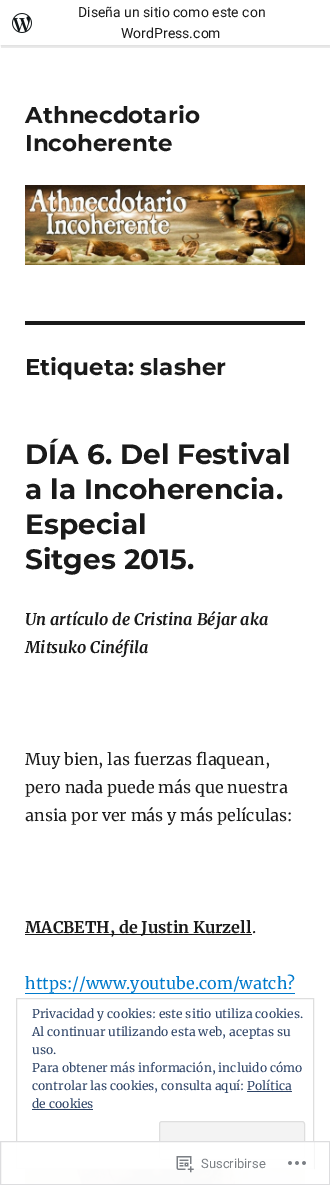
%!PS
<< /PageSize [330 1185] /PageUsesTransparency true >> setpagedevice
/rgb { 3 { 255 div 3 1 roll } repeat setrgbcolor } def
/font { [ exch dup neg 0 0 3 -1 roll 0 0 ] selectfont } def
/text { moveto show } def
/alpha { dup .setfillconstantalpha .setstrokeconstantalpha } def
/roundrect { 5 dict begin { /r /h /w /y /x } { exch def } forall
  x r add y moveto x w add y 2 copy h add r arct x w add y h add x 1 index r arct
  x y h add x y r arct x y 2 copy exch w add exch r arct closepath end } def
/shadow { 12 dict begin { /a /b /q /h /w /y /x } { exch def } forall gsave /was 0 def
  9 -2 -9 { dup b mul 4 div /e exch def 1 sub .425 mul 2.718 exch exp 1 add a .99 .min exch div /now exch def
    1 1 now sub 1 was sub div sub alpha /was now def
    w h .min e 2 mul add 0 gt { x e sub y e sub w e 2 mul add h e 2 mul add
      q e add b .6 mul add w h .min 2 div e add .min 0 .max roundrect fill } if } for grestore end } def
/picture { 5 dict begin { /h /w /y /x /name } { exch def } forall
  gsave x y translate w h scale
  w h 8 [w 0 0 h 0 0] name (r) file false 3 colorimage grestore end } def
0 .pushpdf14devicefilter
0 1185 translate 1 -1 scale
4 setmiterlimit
255 255 255 rgb
0 0 330 1185 rectfill
0 0 0 rgb
0 1 330 45 0 1 0.05 shadow
0.08 alpha
1 45 moveto 0 3 rlineto 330 0 rlineto 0 -45 rlineto -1 0 rlineto 0 42 rlineto closepath fill
1 alpha
255 255 255 rgb
0 0 330 45 rectfill
(img_01.rgb) 12 13 20 20 picture
(img_02.rgb) 25 185 280 80 picture
26 26 26 rgb
25 321 280 4 rectfill
25 934 227 1 rectfill
0 122 204 rgb
25 993 270 1 rectfill
(img_03.rgb) 25 1169 280 16 picture
222 222 222 rgb
16.5 998.5 297 170 rectstroke
46 68 103 rgb
247 1091 45 1 rectfill
32 1109 61 1 rectfill
243 243 243 rgb
159.5 1121.5 145 38 2.5 roundrect gsave fill grestore
222 222 222 rgb
stroke
0.98 alpha
255 255 255 rgb
16 1141 298 44 rectfill
220 220 222 rgb
0.5 1141.5 329 43 rectstroke
1 alpha
(img_04.rgb) 176 1156 18 17 picture
(img_05.rgb) 288 1161 18 4 picture
/Roboto-Regular 14 font
26 26 26 rgb
(Diseña un sitio como este con) 78 17 text
(WordPress.com) 121 38 text
/Montserrat-Thin 23 font
(Athnecdotario) 25 123 text
(Incoherente) 25 151 text
(Etiqueta: slasher) 25 375 text
/Montserrat-Thin 28 font
(DÍA 6. Del Festival) 25 464 text
(a la Incoherencia.) 25 499 text
(Especial) 25 534 text
(Sitges 2015.) 25 569 text
/Merriweather-BoldItalic 16 font
(Un artículo de Cristina Béjar aka) 25 625 text
(Mitsuko Cinéfila) 25 653 text
/Merriweather-Regular 16 font
(Muy bien, las fuerzas flaquean,) 25 765 text
(pero nada puede más que nuestra) 25 793 text
(ansia por ver más y más películas:) 25 821 text
/Merriweather-Bold 16 font
(MACBETH, de Justin Kurzell) 25 933 text
/Merriweather-Regular 16 font
(.) 252 933 text
0 122 204 rgb
(https://www.youtube.com/watch?) 25 989 text
/Merriweather-Regular 12 font
46 68 103 rgb
(Privacidad y cookies: este sitio utiliza cookies.) 32 1018 text
(Al continuar utilizando esta web, aceptas su) 32 1036 text
(uso.) 32 1054 text
(Para obtener más información, incluido cómo) 32 1072 text
(controlar las cookies, consulta aquí: Política) 32 1090 text
(de cookies) 32 1108 text
/Roboto-Regular 13 font
123 127 132 rgb
(Suscribirse) 201 1168 text
.poppdf14devicefilter showpage
